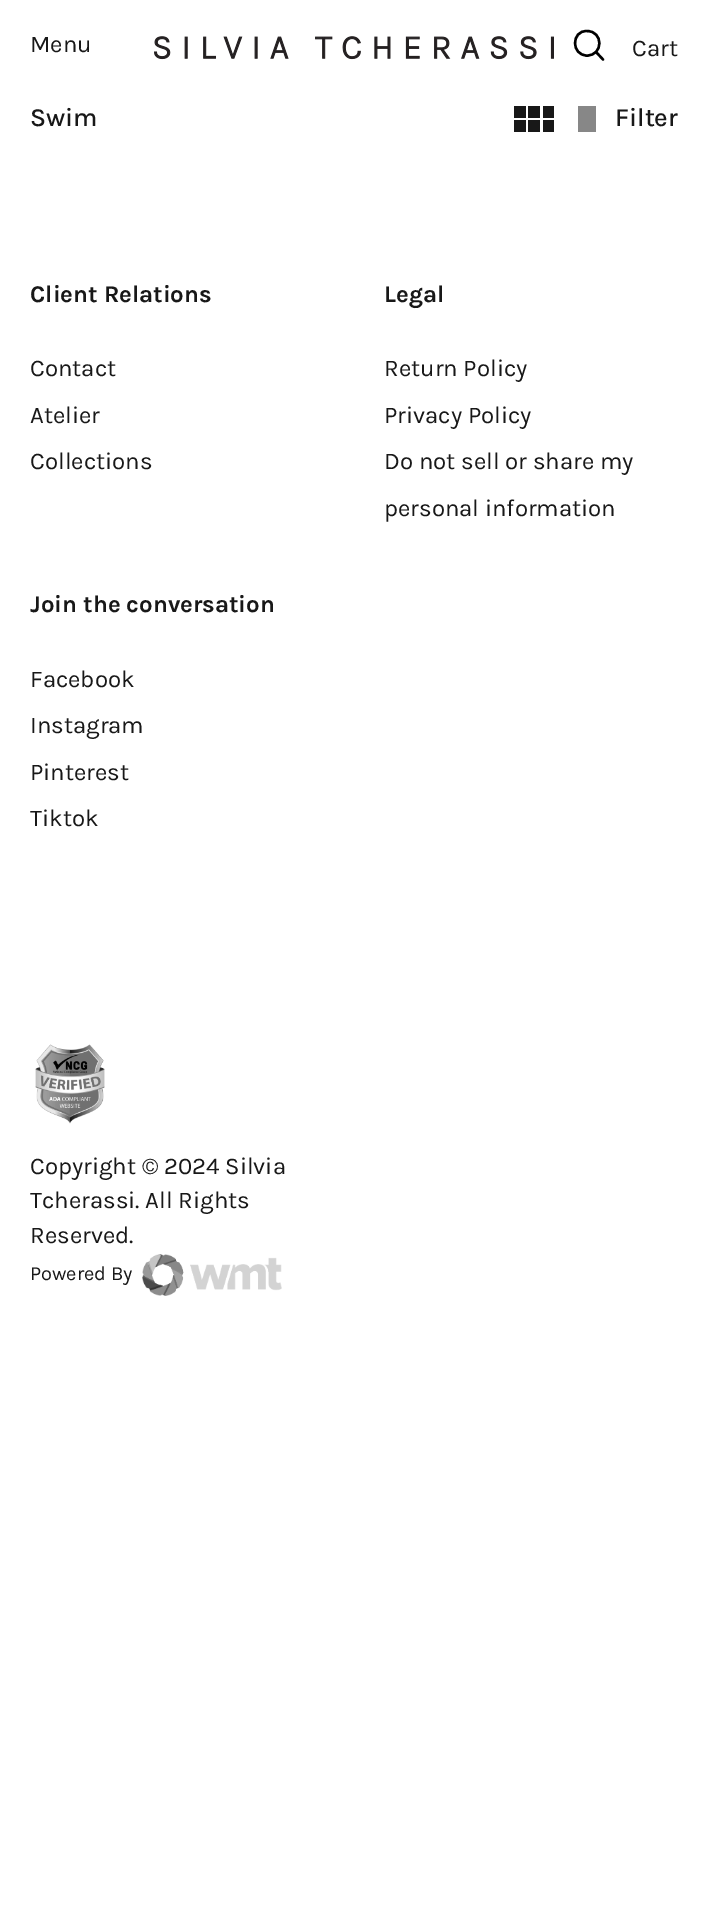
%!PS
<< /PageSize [707 1917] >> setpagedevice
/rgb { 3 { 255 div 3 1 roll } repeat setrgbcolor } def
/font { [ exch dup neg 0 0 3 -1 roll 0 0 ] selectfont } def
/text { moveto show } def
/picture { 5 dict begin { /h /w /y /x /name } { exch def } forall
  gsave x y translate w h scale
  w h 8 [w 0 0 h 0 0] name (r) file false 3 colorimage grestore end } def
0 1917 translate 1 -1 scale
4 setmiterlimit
255 255 255 rgb
0 0 707 1917 rectfill
(img_01.rgb) 154 36 400 24 picture
0 0 0 rgb
2.4 setlinewidth
1 setlinecap
1 setlinejoin
587 55.5 moveto 16.5 0 16.5 -24.5 0 -24.5 rcurveto -16 -0.5 -16 24.5 0 24.5 rcurveto closepath 596 52 moveto 7 7.5 rlineto stroke
24 24 24 rgb
514 120 12 12 rectfill
528 120 12 12 rectfill
543 120 11 12 rectfill
543 106 11 12 rectfill
528 106 12 12 rectfill
514 106 12 12 rectfill
135 135 135 rgb
578 106 18 26 rectfill
(img_02.rgb) 35 1044 70 80 picture
(img_03.rgb) 142 1254 140 42 picture
/Karla-Regular 24 font
24 24 24 rgb
(Menu) 30 52 text
(Cart) 632 56 text
/Karla-Medium 26 font
(Swim) 30 126 text
(Filter) 615 126 text
/Karla-Bold 24 font
(Client Relations) 30 302 text
/Karla-Regular 24 font
(Contact) 30 376 text
(Atelier) 30 423 text
(Collections) 30 469 text
/Karla-Bold 24 font
(Legal) 384 302 text
/Karla-Regular 24 font
(Return Policy) 384 376 text
(Privacy Policy) 384 423 text
(Do not sell or share my) 384 469 text
(personal information) 384 516 text
/Karla-Bold 24 font
(Join the conversation) 30 612 text
/Karla-Regular 24 font
(Facebook) 30 687 text
(Instagram) 30 733 text
(Pinterest) 30 780 text
(Tiktok) 30 826 text
(Copyright © 2024 Silvia) 30 1174 text
(Tcherassi. All Rights) 30 1208 text
(Reserved.) 30 1243 text
/Karla-Regular 20 font
(Powered By) 30 1280 text
showpage
